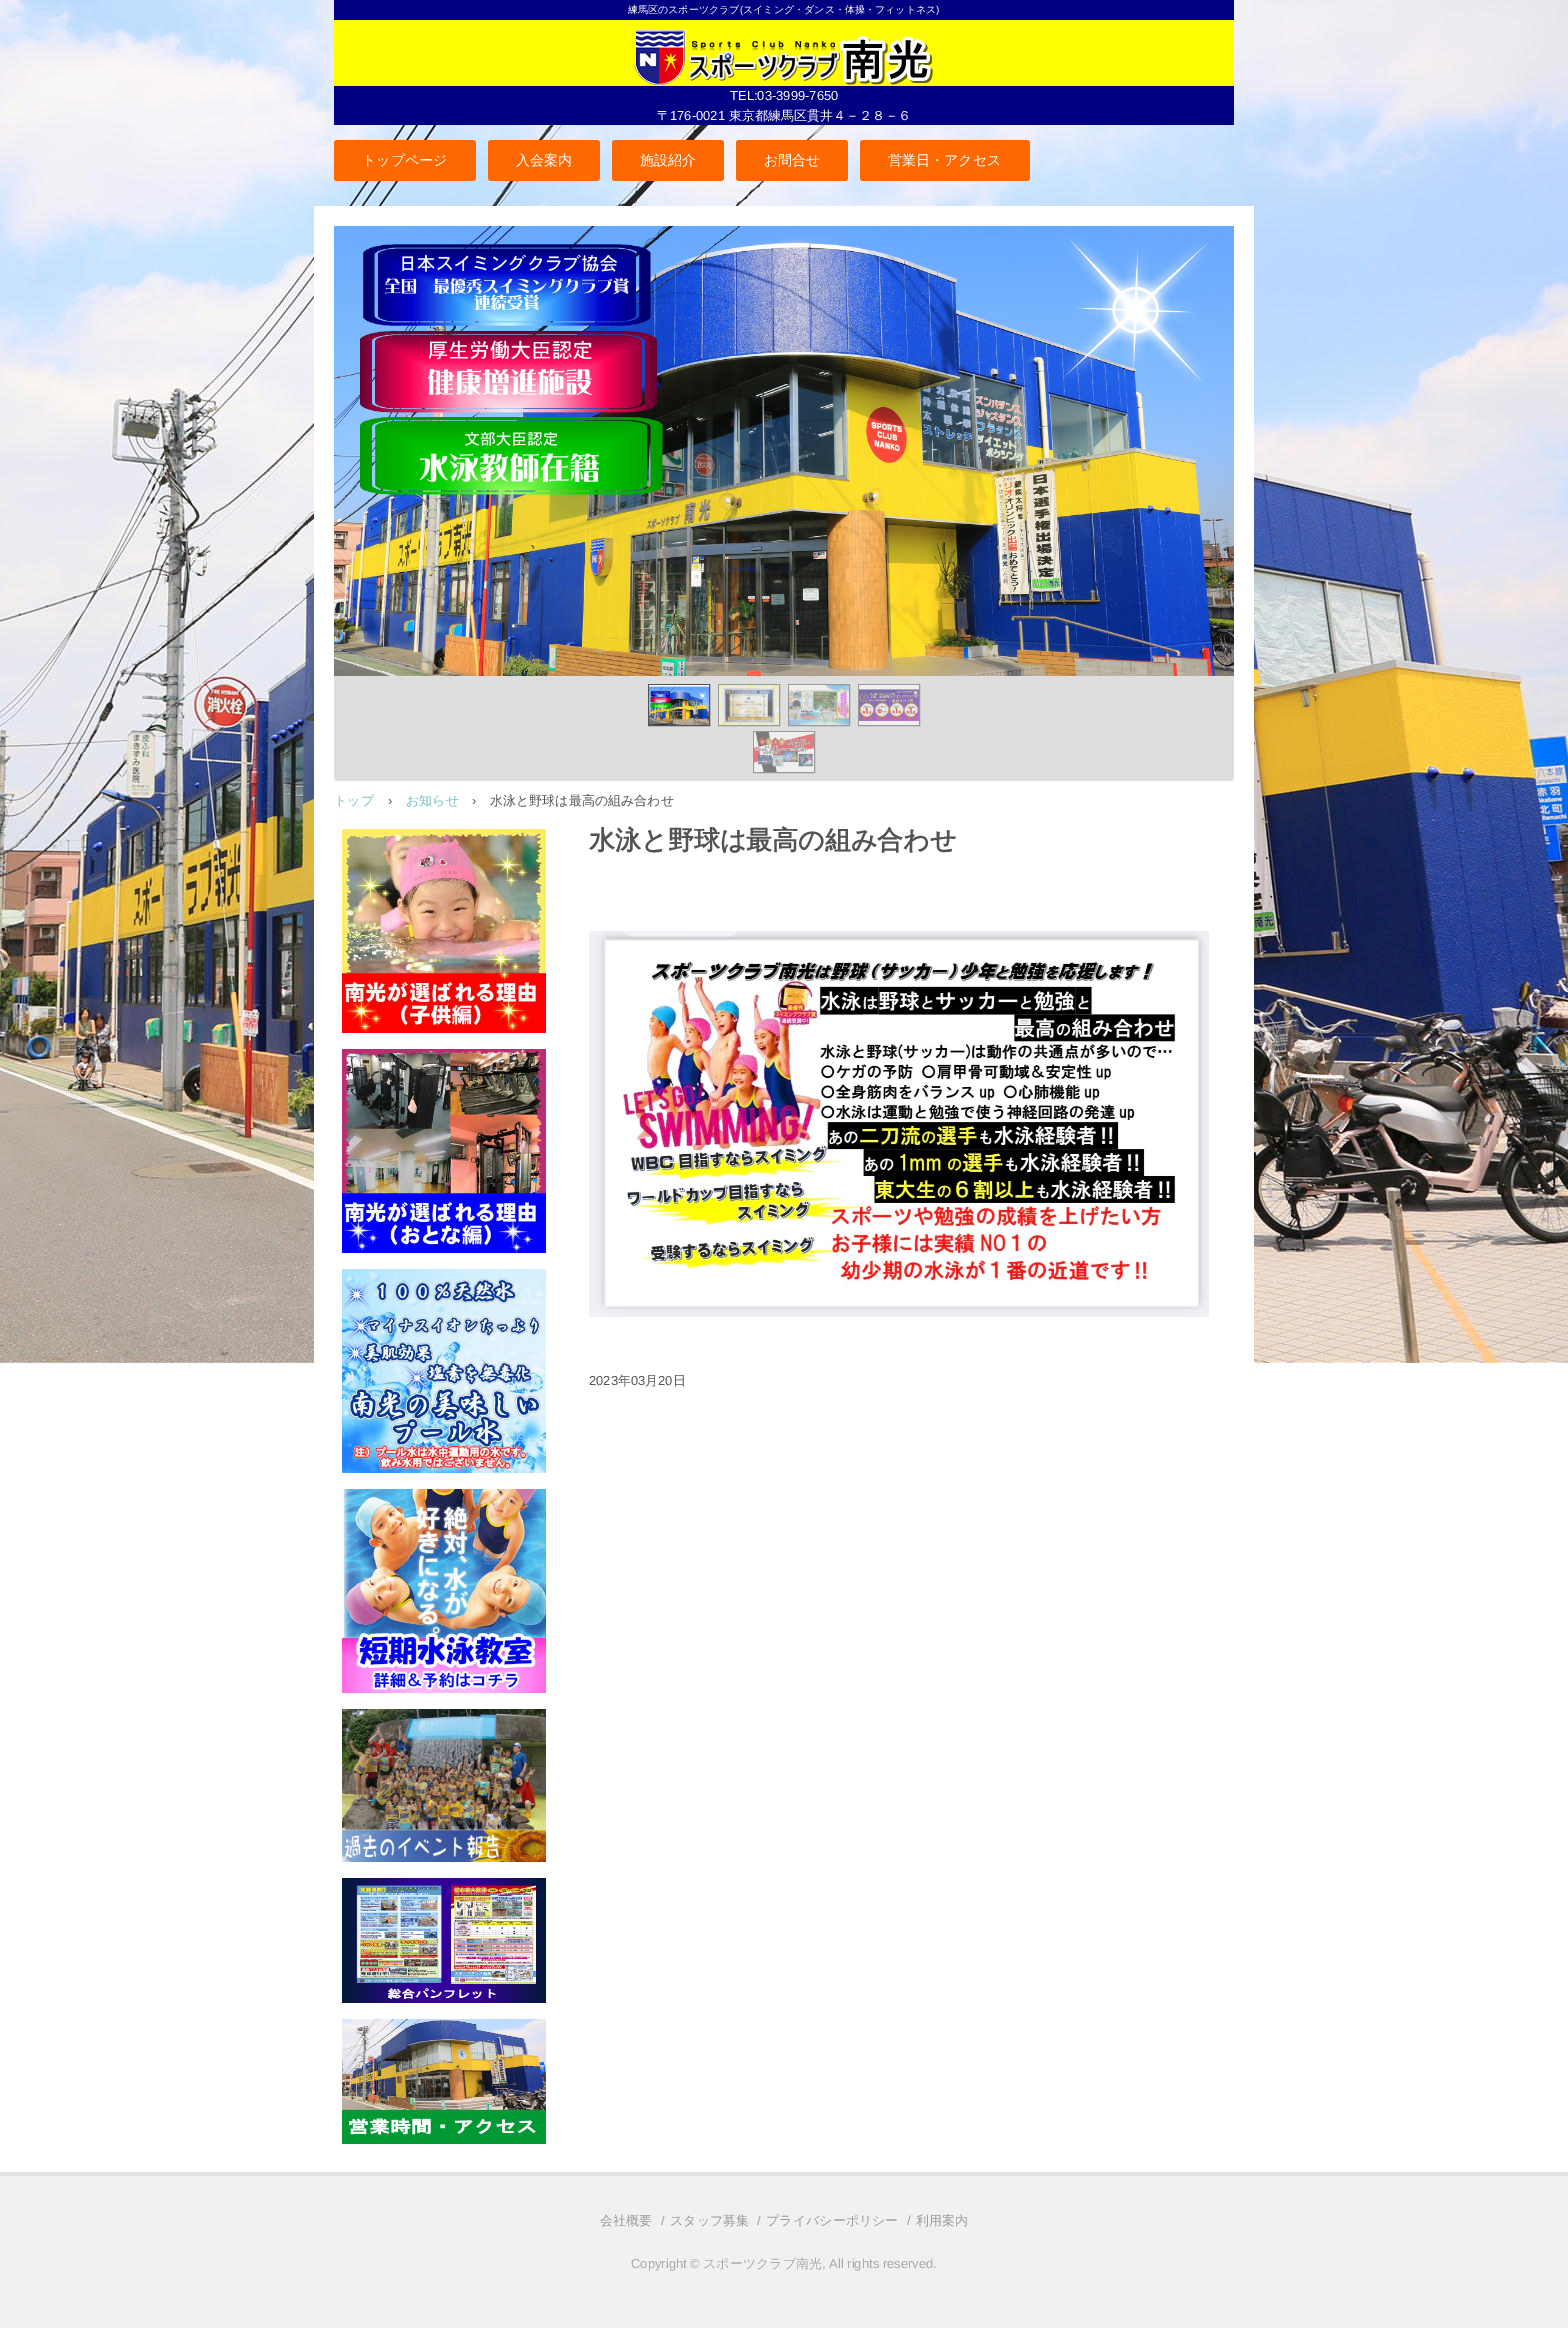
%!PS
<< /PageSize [1568 2332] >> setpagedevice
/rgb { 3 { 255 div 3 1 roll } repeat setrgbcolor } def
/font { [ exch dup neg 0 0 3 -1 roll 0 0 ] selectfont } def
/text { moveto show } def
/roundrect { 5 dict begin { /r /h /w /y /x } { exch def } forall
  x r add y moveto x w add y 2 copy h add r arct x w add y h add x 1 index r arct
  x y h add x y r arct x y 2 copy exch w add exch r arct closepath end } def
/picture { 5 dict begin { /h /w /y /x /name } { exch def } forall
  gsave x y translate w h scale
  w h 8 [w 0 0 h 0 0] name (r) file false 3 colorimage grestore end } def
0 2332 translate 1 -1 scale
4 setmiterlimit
255 255 255 rgb
0 0 1568 2332 rectfill
(img_01.rgb) 0 191 1568 1177 picture
(img_02.rgb) 0 0 1568 191 picture
0 0 128 rgb
334 0 900 20 rectfill
255 255 0 rgb
334 20 900 66 rectfill
(img_03.rgb) 634 30 299 55 picture
0 0 128 rgb
334 86 900 39 rectfill
255 104 0 rgb
334 140 142 41 3 roundrect fill
488 140 112 41 3 roundrect fill
612 140 112 41 3 roundrect fill
736 140 112 41 3 roundrect fill
860 140 170 41 3 roundrect fill
255 255 255 rgb
314 206 940 1162 rectfill
(img_04.rgb) 334 226 900 450 picture
222 222 222 rgb
334 676 moveto 900 0 rlineto 0 101 rlineto 0 2 -2 4 -4 4 rcurveto -892 0 rlineto -2 0 -4 -2 -4 -4 rcurveto closepath fill
83 83 83 rgb
648.5 684.5 61 41 rectstroke
153 153 153 rgb
718.5 684.5 61 41 rectstroke
788.5 684.5 61 41 rectstroke
858.5 684.5 61 41 rectstroke
(img_05.rgb) 649 685 60 40 picture
(img_06.rgb) 719 685 60 40 picture
(img_07.rgb) 789 685 60 40 picture
(img_08.rgb) 859 685 60 40 picture
753.5 731.5 61 41 rectstroke
(img_09.rgb) 754 732 60 40 picture
(img_10.rgb) 342 829 204 204 picture
(img_11.rgb) 342 1049 204 204 picture
(img_12.rgb) 342 1269 204 204 picture
(img_13.rgb) 342 1489 204 204 picture
(img_14.rgb) 342 1709 204 153 picture
(img_15.rgb) 342 1878 204 125 picture
(img_16.rgb) 342 2019 204 125 picture
(img_17.rgb) 589 931 620 386 picture
241 241 241 rgb
0 2176 1568 152 rectfill
228 228 228 rgb
0 2172 1568 4 rectfill
/WenQuanYiZenHei-Medium 10 font
255 255 255 rgb
(練馬区のスポーツクラブ) 628 13 text
/LiberationSans-Regular 10 font
(\() 740 13 text
/WenQuanYiZenHei-Medium 10 font
(スイミング・ダンス・体操・フィットネス) 743 13 text
/LiberationSans-Regular 10 font
(\)) 936 13 text
/LiberationSans-Regular 13 font
(TEL:03-3999-7650) 730 100 text
/WenQuanYiZenHei-Medium 13 font
(〒) 657 120 text
/LiberationSans-Regular 13 font
(176-0021) 670 120 text
/WenQuanYiZenHei-Medium 13 font
(東京都練馬区貫井４－２８－６) 729 120 text
/WenQuanYiZenHei-Medium 14 font
(トップページ) 362 165 text
(入会案内) 516 165 text
(施設紹介) 640 165 text
(お問合せ) 764 165 text
(営業日・アクセス) 888 165 text
/WenQuanYiZenHei-Medium 13 font
114 193 192 rgb
(トップ) 334 805 text
/LiberationSans-Regular 13 font
83 83 83 rgb
(›) 388 805 text
/WenQuanYiZenHei-Medium 13 font
114 193 192 rgb
(お知らせ) 406 805 text
/LiberationSans-Regular 13 font
83 83 83 rgb
(›) 472 805 text
/WenQuanYiZenHei-Medium 13 font
(水泳と野球は最高の組み合わせ) 490 805 text
/WenQuanYiZenHei-Bold 26 font
(水泳と野球は最高の組み合わせ) 589 849 text
/LiberationSans-Regular 13 font
(2023) 589 1385 text
/WenQuanYiZenHei-Medium 13 font
(年) 618 1385 text
/LiberationSans-Regular 13 font
(03) 631 1385 text
/WenQuanYiZenHei-Medium 13 font
(月) 645 1385 text
/LiberationSans-Regular 13 font
(20) 658 1385 text
/WenQuanYiZenHei-Medium 13 font
(日) 673 1385 text
156 156 154 rgb
(会社概要) 600 2225 text
/LiberationSans-Regular 13 font
(/) 661 2225 text
/WenQuanYiZenHei-Medium 13 font
(スタッフ募集) 670 2225 text
/LiberationSans-Regular 13 font
(/) 757 2225 text
/WenQuanYiZenHei-Medium 13 font
(プライバシーポリシー) 766 2225 text
/LiberationSans-Regular 13 font
(/) 907 2225 text
/WenQuanYiZenHei-Medium 13 font
(利用案内) 916 2225 text
/LiberationSans-Regular 13 font
168 170 170 rgb
(Copyright ©) 631 2268 text
/WenQuanYiZenHei-Medium 13 font
(スポーツクラブ南光) 703 2268 text
/LiberationSans-Regular 13 font
(, All rights reserved.) 822 2268 text
showpage
